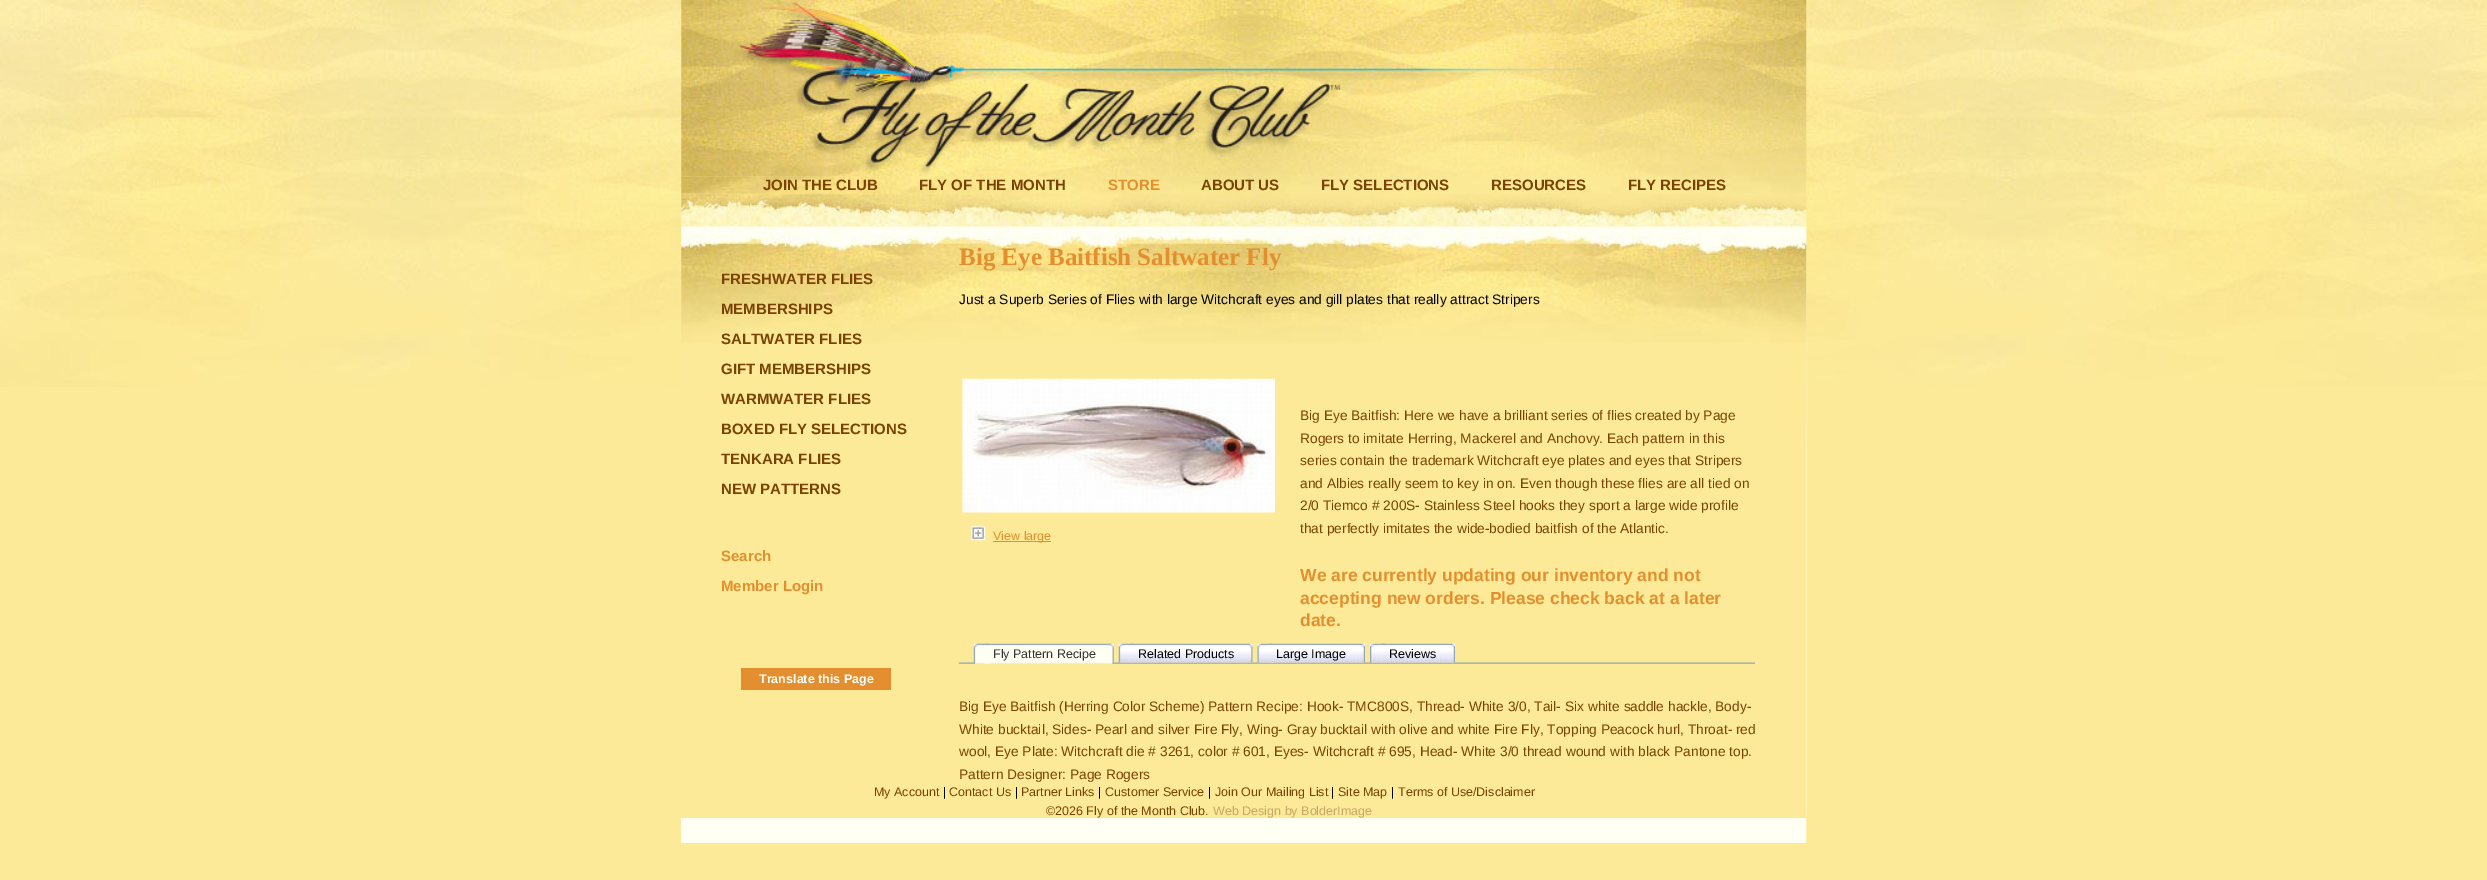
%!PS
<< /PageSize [2487 880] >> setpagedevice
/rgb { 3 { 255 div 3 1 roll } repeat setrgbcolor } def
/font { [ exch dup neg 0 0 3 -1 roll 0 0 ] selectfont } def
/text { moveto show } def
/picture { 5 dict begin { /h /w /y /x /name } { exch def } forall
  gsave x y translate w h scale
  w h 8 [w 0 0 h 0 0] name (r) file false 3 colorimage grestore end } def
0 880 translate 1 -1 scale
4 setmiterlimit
252 234 152 rgb
0 0 2487 880 rectfill
(img_01.rgb) 0 0 2487 387 picture
(img_03.rgb) 681 176 1125 18 picture
(img_02.rgb) 681 0 1126 177 picture
255 255 243 rgb
681 818 1125 25 rectfill
(img_05.rgb) 681 226 1126 617 picture
252 234 152 rgb
681 226 1125 592 rectfill
(img_17.rgb) 681 226 1126 117 picture
(img_04.rgb) 681 193 1126 34 picture
227 143 47 rgb
741 668 150 22 rectfill
(img_06.rgb) 962 378 313 135 picture
(img_07.rgb) 971 526 15 15 picture
993 541 58 1 rectfill
(img_08.rgb) 958 662 797 2 picture
(img_09.rgb) 973 643 16 21 picture
(img_10.rgb) 985 643 129 21 picture
(img_11.rgb) 1118 643 16 20 picture
(img_12.rgb) 1130 643 123 20 picture
(img_13.rgb) 1257 643 16 20 picture
(img_14.rgb) 1268 643 97 20 picture
(img_15.rgb) 1370 643 15 20 picture
(img_16.rgb) 1381 643 74 20 picture
/LiberationSans-Bold 15 font
122 66 2 rgb
(JOIN THE CLUB) 763 190 text
(FLY OF THE MONTH) 919 190 text
227 143 47 rgb
(STORE) 1108 190 text
122 66 2 rgb
(ABOUT US) 1201 190 text
(FLY SELECTIONS) 1321 190 text
(RESOURCES) 1491 190 text
(FLY RECIPES) 1628 190 text
(FRESHWATER FLIES) 721 284 text
(MEMBERSHIPS) 721 314 text
(SALTWATER FLIES) 721 344 text
(GIFT MEMBERSHIPS) 721 374 text
(WARMWATER FLIES) 721 404 text
(BOXED FLY SELECTIONS) 721 434 text
(TENKARA FLIES) 721 464 text
(NEW PATTERNS) 721 494 text
227 143 47 rgb
(Search) 721 561 text
(Member Login) 721 591 text
/LiberationSans-Bold 12.5 font
255 255 255 rgb
(Translate this Page) 759 683 text
/LiberationSerif-Bold 25 font
227 143 47 rgb
(Big Eye Baitfish Saltwater Fly) 959 265 text
/LiberationSans-Regular 13.75 font
0 0 0 rgb
(Just a Superb Series of Flies with large Witchcraft eyes and gill plates that really attract Stripers) 959 304 text
/LiberationSans-Regular 12.5 font
227 143 47 rgb
(View large) 993 540 text
/LiberationSans-Regular 13.75 font
122 66 2 rgb
(Big Eye Baitfish: Here we have a brilliant series of flies created by Page) 1300 420 text
(Rogers to imitate Herring, Mackerel and Anchovy. Each pattern in this) 1300 443 text
(series contain the trademark Witchcraft eye plates and eyes that Stripers) 1300 465 text
(and Albies really seem to key in on. Even though these flies are all tied on) 1300 488 text
(2/0 Tiemco # 200S- Stainless Steel hooks they sport a large wide profile) 1300 510 text
(that perfectly imitates the wide-bodied baitfish of the Atlantic.) 1300 533 text
/LiberationSans-Bold 17.5 font
227 143 47 rgb
(We are currently updating our inventory and not) 1300 581 text
(accepting new orders. Please check back at a later) 1300 604 text
(date.) 1300 626 text
/LiberationSans-Regular 12.5 font
51 51 51 rgb
(Fly Pattern Recipe) 993 658 text
0 0 0 rgb
(Related Products) 1138 658 text
(Large Image) 1276 658 text
(Reviews) 1389 658 text
/LiberationSans-Regular 13.75 font
122 66 2 rgb
(Big Eye Baitfish \(Herring Color Scheme\) Pattern Recipe: Hook- TMC800S, Thread- White 3/0, Tail- Six white saddle hackle, Body-) 959 711 text
(White bucktail, Sides- Pearl and silver Fire Fly, Wing- Gray bucktail with olive and white Fire Fly, Topping Peacock hurl, Throat- red) 959 734 text
(wool, Eye Plate: Witchcraft die # 3261, color # 601, Eyes- Witchcraft # 695, Head- White 3/0 thread wound with black Pantone top.) 959 756 text
(Pattern Designer: Page Rogers) 959 779 text
/LiberationSans-Regular 12.5 font
(My Account) 874 796 text
0 0 0 rgb
(|) 943 796 text
122 66 2 rgb
(Contact Us) 949 796 text
0 0 0 rgb
(|) 1015 796 text
122 66 2 rgb
(Partner Links) 1021 796 text
0 0 0 rgb
(|) 1098 796 text
122 66 2 rgb
(Customer Service) 1105 796 text
0 0 0 rgb
(|) 1208 796 text
122 66 2 rgb
(Join Our Mailing List) 1215 796 text
0 0 0 rgb
(|) 1331 796 text
122 66 2 rgb
(Site Map) 1338 796 text
0 0 0 rgb
(|) 1391 796 text
122 66 2 rgb
(Terms of Use/Disclaimer) 1398 796 text
(©2026 Fly of the Month Club.) 1046 815 text
202 166 103 rgb
(Web Design by BolderImage) 1213 815 text
showpage
